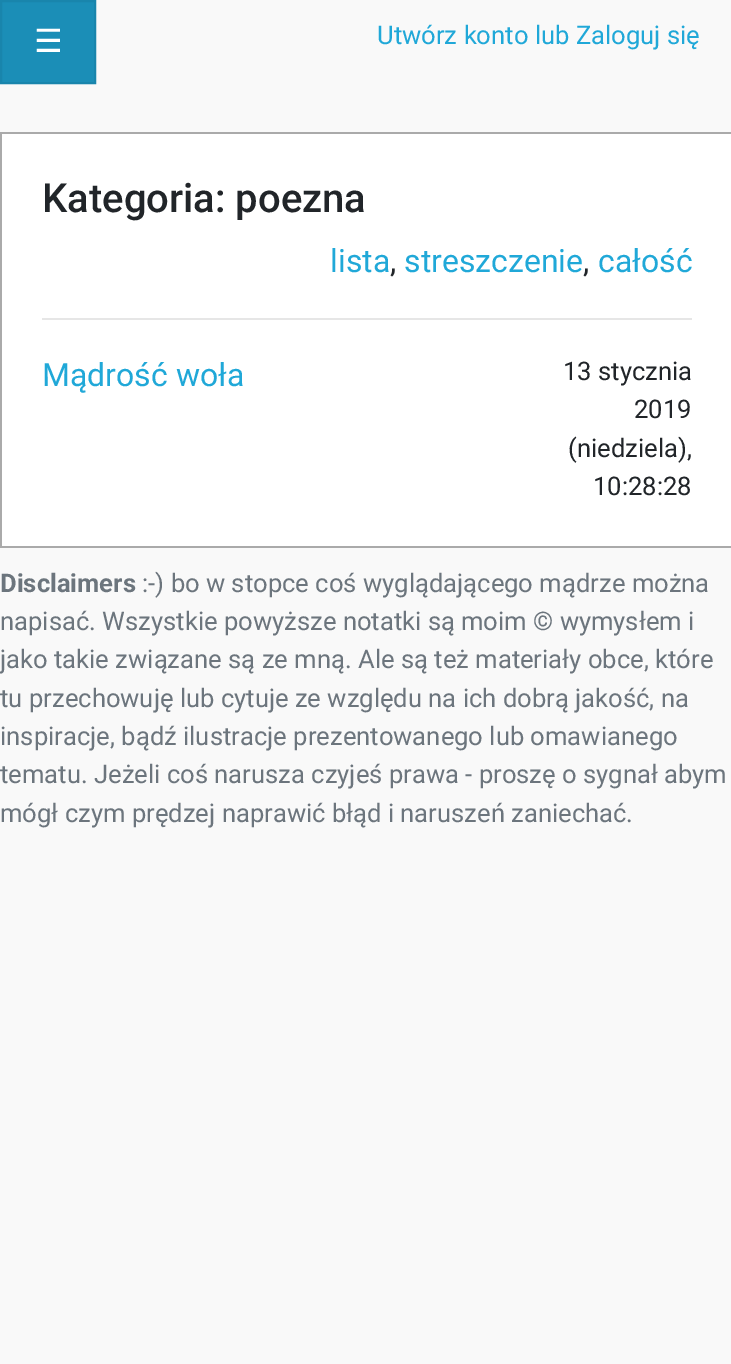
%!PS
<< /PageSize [731 1364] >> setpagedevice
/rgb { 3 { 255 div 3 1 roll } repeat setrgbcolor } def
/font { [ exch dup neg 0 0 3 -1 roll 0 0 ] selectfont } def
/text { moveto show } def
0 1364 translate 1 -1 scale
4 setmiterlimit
249 249 249 rgb
0 0 731 1364 rectfill
27 142 183 rgb
1 1 moveto 94 0 rlineto 0 82 rlineto -94 0 rlineto closepath gsave fill grestore
25 133 172 rgb
2 setlinewidth
stroke
255 255 255 rgb
2 134 729 412 rectfill
170 170 170 rgb
0 132 731 2 rectfill
0 546 731 2 rectfill
0 132 2 416 rectfill
230 230 230 rgb
42 318 650 2 rectfill
/DejaVuSans-Regular 32 font
255 255 255 rgb
(☰) 34 52 text
/Roboto-Regular 25.6 font
32 168 216 rgb
(Utwórz konto lub Zaloguj się) 377 44 text
/Roboto-Medium 40 font
33 37 41 rgb
(Kategoria: poezna) 42 212 text
/Roboto-Regular 32 font
32 168 216 rgb
(lista) 330 272 text
33 37 41 rgb
(,) 390 272 text
32 168 216 rgb
(streszczenie) 404 272 text
33 37 41 rgb
(,) 583 272 text
32 168 216 rgb
(całość) 598 272 text
(Mądrość woła) 42 386 text
/Roboto-Regular 25.6 font
33 37 41 rgb
(13 stycznia) 563 380 text
(2019) 634 418 text
(\(niedziela\),) 568 457 text
(10:28:28) 593 495 text
/Roboto-Bold 25.6 font
108 117 125 rgb
(Disclaimers) 0 592 text
/Roboto-Regular 25.6 font
(:-\) bo w stopce coś wyglądającego mądrze można) 142 592 text
(napisać. Wszystkie powyższe notatki są moim © wymysłem i) 0 630 text
(jako takie związane są ze mną. Ale są też materiały obce, które) 0 668 text
(tu przechowuję lub cytuje ze względu na ich dobrą jakość, na) 0 707 text
(inspiracje, bądź ilustracje prezentowanego lub omawianego) 0 745 text
(tematu. Jeżeli coś narusza czyjeś prawa - proszę o sygnał abym) 0 783 text
(mógł czym prędzej naprawić błąd i naruszeń zaniechać.) 0 822 text
showpage
